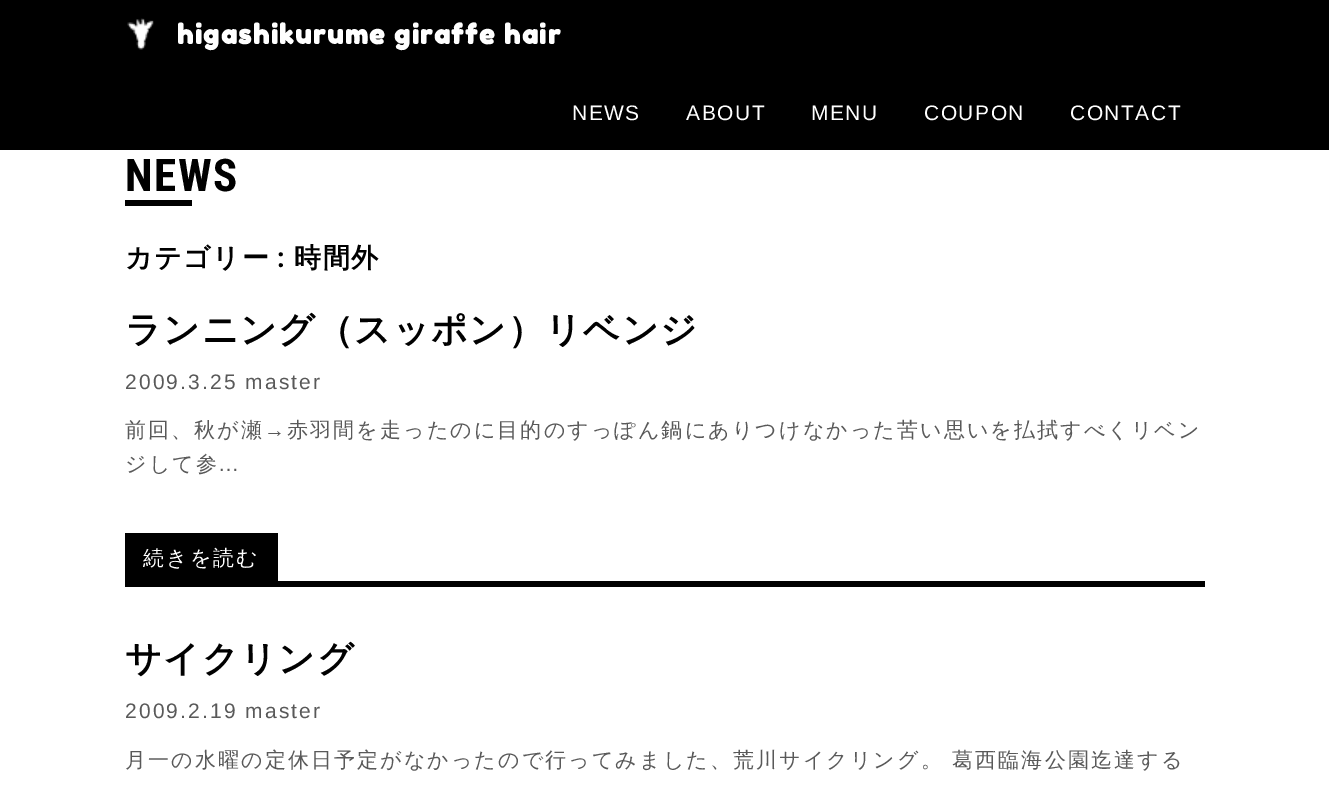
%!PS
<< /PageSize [1329 796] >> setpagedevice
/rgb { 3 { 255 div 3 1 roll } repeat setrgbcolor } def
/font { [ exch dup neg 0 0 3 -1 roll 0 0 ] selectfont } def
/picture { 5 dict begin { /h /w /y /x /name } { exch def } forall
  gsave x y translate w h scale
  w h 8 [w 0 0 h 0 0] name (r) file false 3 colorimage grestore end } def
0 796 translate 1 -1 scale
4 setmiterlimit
255 255 255 rgb
0 0 1329 796 rectfill
0 0 0 rgb
0 0 1329 150 rectfill
(img_01.rgb) 127 18 27 32 picture
125 200 67 6 rectfill
125 533 153 48 rectfill
125 581 1080 6 rectfill
/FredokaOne-Bold 27 font
255 255 255 rgb
177 44 moveto 1.5 0 (higashikurume giraffe hair) ashow
/LiberationSans-Regular 21 font
572 120 moveto 1.5 0 (NEWS) ashow
686 120 moveto 1.5 0 (ABOUT) ashow
811 120 moveto 1.5 0 (MENU) ashow
924 120 moveto 1.5 0 (COUPON) ashow
1070 120 moveto 1.5 0 (CONTACT) ashow
/RobotoCondensed-Bold 45 font
0 0 0 rgb
125 191 moveto 1.5 0 (NEWS) ashow
/WenQuanYiZenHei-Bold 27 font
125 267 moveto 1.5 0 (カテゴリー) ashow
/RobotoCondensed-Bold 27 font
277 267 moveto 1.5 0 (:) ashow
/WenQuanYiZenHei-Bold 27 font
294 267 moveto 1.5 0 (時間外) ashow
/WenQuanYiZenHei-Bold 36 font
125 342 moveto 1.5 0 (ランニング（スッポン）リベンジ) ashow
/LiberationSans-Regular 21 font
89 89 89 rgb
125 389 moveto 2.1 0 (2009.3.25 master) ashow
/WenQuanYiZenHei-Medium 21 font
125 437 moveto 2.1 0 (前回、秋が瀬) ashow
/LiberationSans-Regular 21 font
264 437 moveto 2.1 0 (→) ashow
/WenQuanYiZenHei-Medium 21 font
287 437 moveto 2.1 0 (赤羽間を走ったのに目的のすっぽん鍋にありつけなかった苦い思いを払拭すべくリベン) ashow
125 471 moveto 2.1 0 (ジして参) ashow
/LiberationSans-Regular 21 font
218 471 moveto 2.1 0 (…) ashow
/WenQuanYiZenHei-Medium 21 font
255 255 255 rgb
143 565 moveto 2.1 0 (続きを読む) ashow
/WenQuanYiZenHei-Bold 36 font
0 0 0 rgb
125 671 moveto 1.5 0 (サイクリング) ashow
/LiberationSans-Regular 21 font
89 89 89 rgb
125 718 moveto 2.1 0 (2009.2.19 master) ashow
/WenQuanYiZenHei-Medium 21 font
125 767 moveto 2.1 0 (月一の水曜の定休日予定がなかったので行ってみました、荒川サイクリング。 葛西臨海公園迄達する) ashow
showpage
